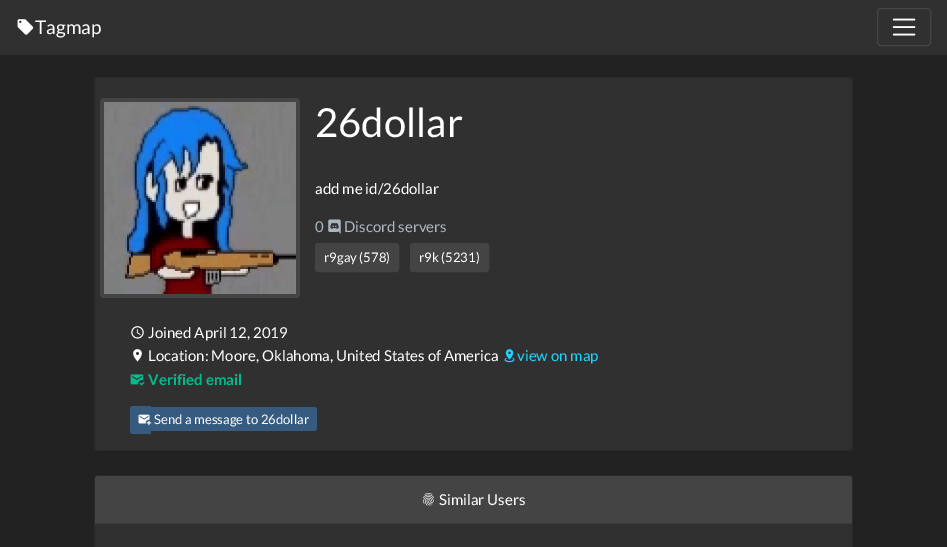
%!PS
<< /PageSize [947 547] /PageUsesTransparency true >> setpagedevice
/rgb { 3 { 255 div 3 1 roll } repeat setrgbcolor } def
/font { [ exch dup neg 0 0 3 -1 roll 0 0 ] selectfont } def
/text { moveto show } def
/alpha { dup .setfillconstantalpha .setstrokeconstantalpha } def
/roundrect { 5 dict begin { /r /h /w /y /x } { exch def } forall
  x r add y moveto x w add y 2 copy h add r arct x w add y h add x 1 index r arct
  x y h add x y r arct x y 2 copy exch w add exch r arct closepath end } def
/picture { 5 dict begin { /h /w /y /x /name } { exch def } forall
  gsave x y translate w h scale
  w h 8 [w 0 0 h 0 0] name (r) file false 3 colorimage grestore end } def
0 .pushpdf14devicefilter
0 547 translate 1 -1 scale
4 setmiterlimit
34 34 34 rgb
0 0 947 547 rectfill
48 48 48 rgb
0 0 947 55 rectfill
(img_01.rgb) 17 19 17 16 picture
69 69 69 rgb
877.5 8.5 53 37 3.5 roundrect stroke
(img_02.rgb) 892 18 24 18 picture
48 48 48 rgb
94 77 759 374 4 roundrect fill
0.12 alpha
0 0 0 rgb
94.5 77.5 758 373 3.5 roundrect stroke
1 alpha
68 68 68 rgb
100 98 200 200 4 roundrect fill
(img_03.rgb) 104 102 192 192 picture
(img_04.rgb) 328 219 13 15 picture
315.5 243.5 83 28 2.5 roundrect gsave fill grestore
stroke
410.5 243.5 78 28 2.5 roundrect gsave fill grestore
stroke
(img_05.rgb) 131 326 13 13 picture
(img_06.rgb) 133 349 9 13 picture
(img_07.rgb) 504 349 11 14 picture
(img_08.rgb) 130 374 15 12 picture
55 90 127 rgb
133 406 moveto 18 0 rlineto 0 28 rlineto -18 0 rlineto -1.5 0 -3 -1.5 -3 -3 rcurveto 0 -22 rlineto 0 -1.5 1.5 -3 3 -3 rcurveto closepath fill
151 407 moveto 163 0 rlineto 1.5 0 3 1.5 3 3 rcurveto 0 18 rlineto 0 1.5 -1.5 3 -3 3 rcurveto -163 0 rlineto closepath fill
(img_09.rgb) 138 414 14 12 picture
48 48 48 rgb
94 475 759 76 4 roundrect fill
0.12 alpha
0 0 0 rgb
94.5 475.5 758 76 3.5 roundrect stroke
1 alpha
68 68 68 rgb
98 476 moveto 751 0 rlineto 1.5 0 3 1.5 3 3 rcurveto 0 45 rlineto -757 0 rlineto 0 -45 rlineto 0 -1.5 1.5 -3 3 -3 rcurveto closepath fill
60 60 60 rgb
95 523 757 1 rectfill
(img_10.rgb) 422 493 13 13 picture
/Lato-Regular 19 font
255 255 255 rgb
(Tagmap) 35 34 text
/Lato-Regular 40 font
(26dollar) 315 137 text
/Lato-Regular 15 font
(add me id/26dollar) 315 194 text
173 181 189 rgb
(0) 315 232 text
(Discord servers) 344 232 text
/Lato-Regular 13.1 font
255 255 255 rgb
(r9gay \(578\)) 324 262 text
(r9k \(5231\)) 419 262 text
/Lato-Regular 15 font
(Joined April 12, 2019) 148 338 text
(Location: Moore, Oklahoma, United States of America) 148 361 text
27 212 255 rgb
(view on map) 517 361 text
/Lato-Bold 15 font
0 188 140 rgb
(Verified email) 148 385 text
/Lato-Regular 13.1 font
255 255 255 rgb
(Send a message to 26dollar) 154 424 text
/Lato-Regular 15 font
(Similar Users) 439 505 text
.poppdf14devicefilter showpage
